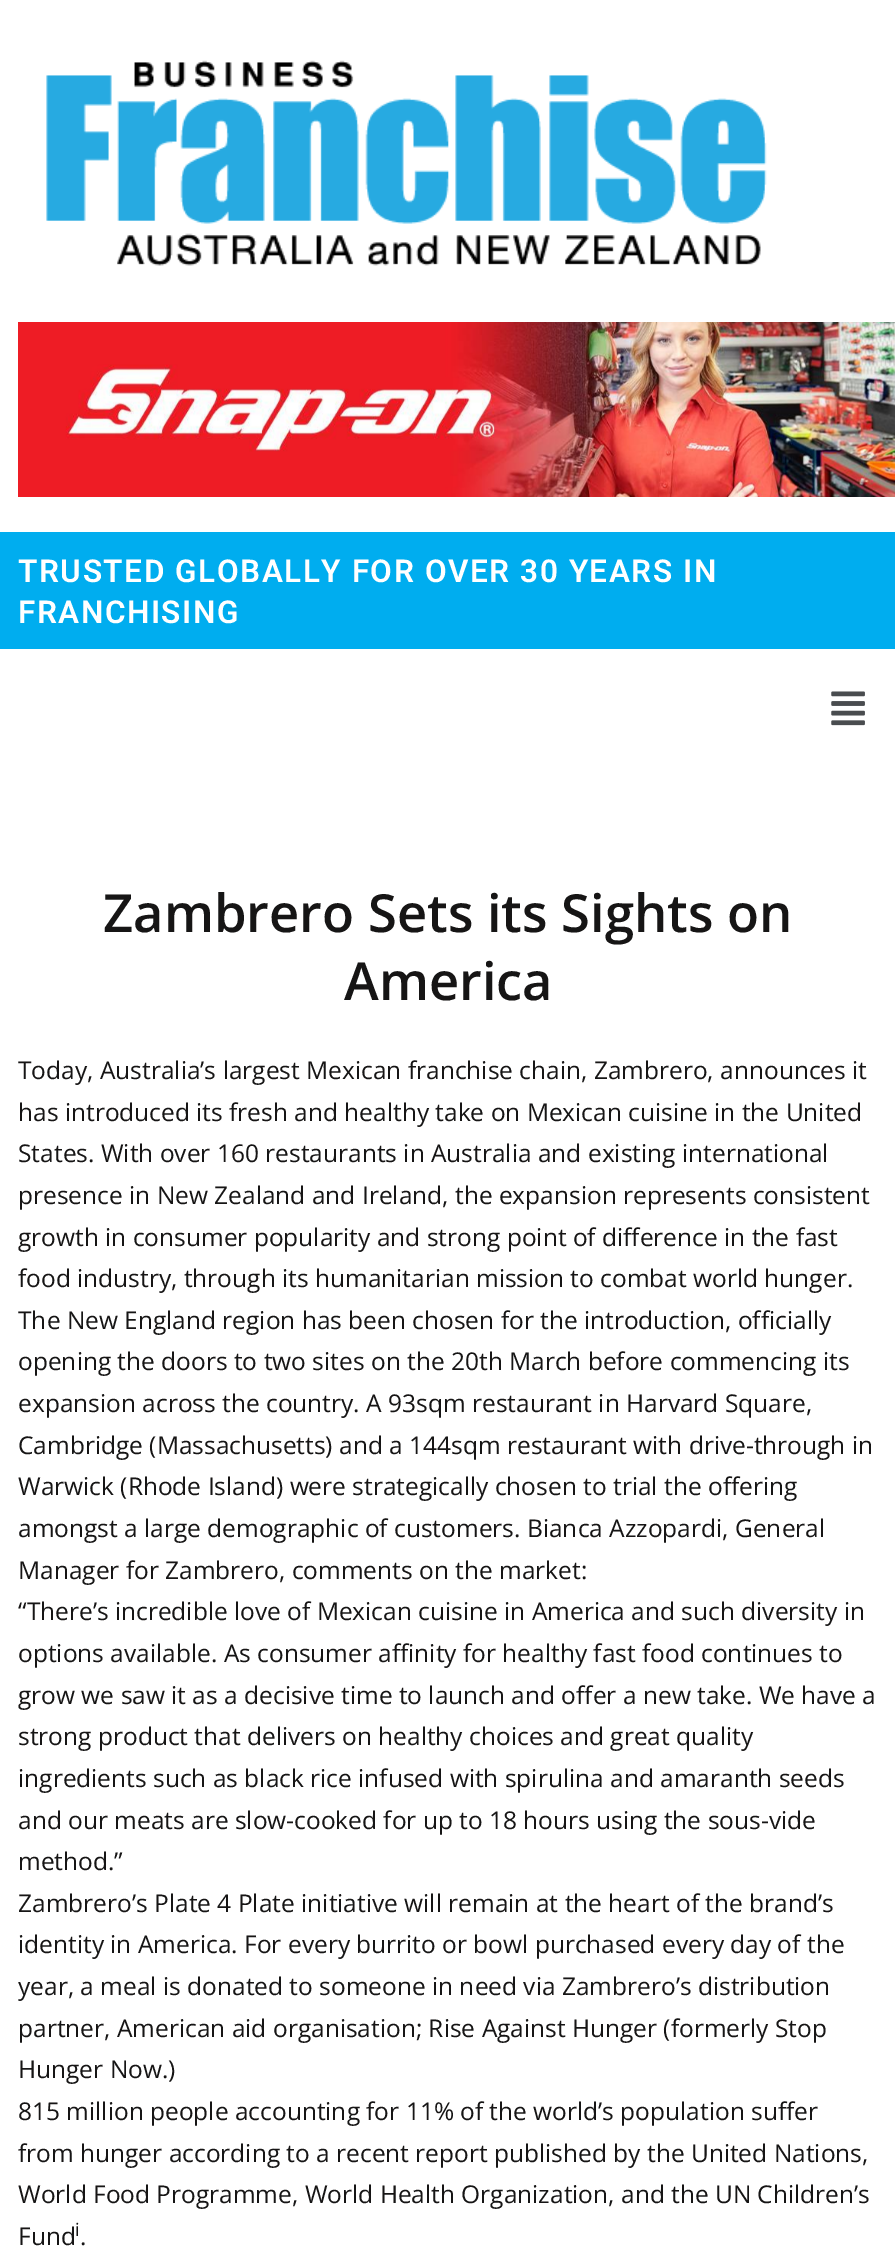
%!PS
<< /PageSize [895 2261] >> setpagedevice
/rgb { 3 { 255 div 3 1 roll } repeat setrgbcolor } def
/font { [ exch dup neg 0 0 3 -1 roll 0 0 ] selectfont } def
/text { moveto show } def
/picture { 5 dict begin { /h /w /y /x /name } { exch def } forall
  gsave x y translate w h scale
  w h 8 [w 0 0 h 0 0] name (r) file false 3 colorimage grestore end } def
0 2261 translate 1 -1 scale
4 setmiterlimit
255 255 255 rgb
0 0 895 2261 rectfill
(img_01.rgb) 46 60 721 206 picture
(img_02.rgb) 18 322 877 175 picture
0 173 239 rgb
0 532 895 117 rectfill
(img_03.rgb) 831 691 34 35 picture
/Roboto-SemiBold 31.5 font
255 255 255 rgb
18 582 moveto 1.55 0 (TRUSTED GLOBALLY FOR OVER 30 YEARS IN) ashow
18 623 moveto 1.55 0 (FRANCHISING) ashow
/OpenSans-SemiBold 52.5 font
22 21 21 rgb
(Zambrero Sets its Sights on) 103 932 text
(America) 344 1000 text
/OpenSans-Regular 24.5 font
(Today, Australia’s largest Mexican franchise chain, Zambrero, announces it) 18 1079 text
(has introduced its fresh and healthy take on Mexican cuisine in the United) 18 1121 text
(States. With over 160 restaurants in Australia and existing international) 18 1162 text
(presence in New Zealand and Ireland, the expansion represents consistent) 18 1204 text
(growth in consumer popularity and strong point of difference in the fast) 18 1246 text
(food industry, through its humanitarian mission to combat world hunger.) 18 1287 text
(The New England region has been chosen for the introduction, officially) 18 1329 text
(opening the doors to two sites on the 20th March before commencing its) 18 1370 text
(expansion across the country. A 93sqm restaurant in Harvard Square,) 18 1412 text
(Cambridge \(Massachusetts\) and a 144sqm restaurant with drive-through in) 18 1454 text
(Warwick \(Rhode Island\) were strategically chosen to trial the offering) 18 1495 text
(amongst a large demographic of customers. Bianca Azzopardi, General) 18 1537 text
(Manager for Zambrero, comments on the market:) 18 1579 text
(“There’s incredible love of Mexican cuisine in America and such diversity in) 18 1620 text
(options available. As consumer affinity for healthy fast food continues to) 18 1662 text
(grow we saw it as a decisive time to launch and offer a new take. We have a) 18 1704 text
(strong product that delivers on healthy choices and great quality) 18 1745 text
(ingredients such as black rice infused with spirulina and amaranth seeds) 18 1787 text
(and our meats are slow-cooked for up to 18 hours using the sous-vide) 18 1829 text
(method.”) 18 1870 text
(Zambrero’s Plate 4 Plate initiative will remain at the heart of the brand’s) 18 1912 text
(identity in America. For every burrito or bowl purchased every day of the) 18 1953 text
(year, a meal is donated to someone in need via Zambrero’s distribution) 18 1995 text
(partner, American aid organisation; Rise Against Hunger \(formerly Stop) 18 2037 text
(Hunger Now.\)) 18 2078 text
(815 million people accounting for 11% of the world’s population suffer) 18 2120 text
(from hunger according to a recent report published by the United Nations,) 18 2162 text
(World Food Programme, World Health Organization, and the UN Children’s) 18 2203 text
(Fund) 18 2245 text
/OpenSans-Regular 18 font
(i) 75 2236 text
/OpenSans-Regular 24.5 font
(.) 80 2245 text
showpage
